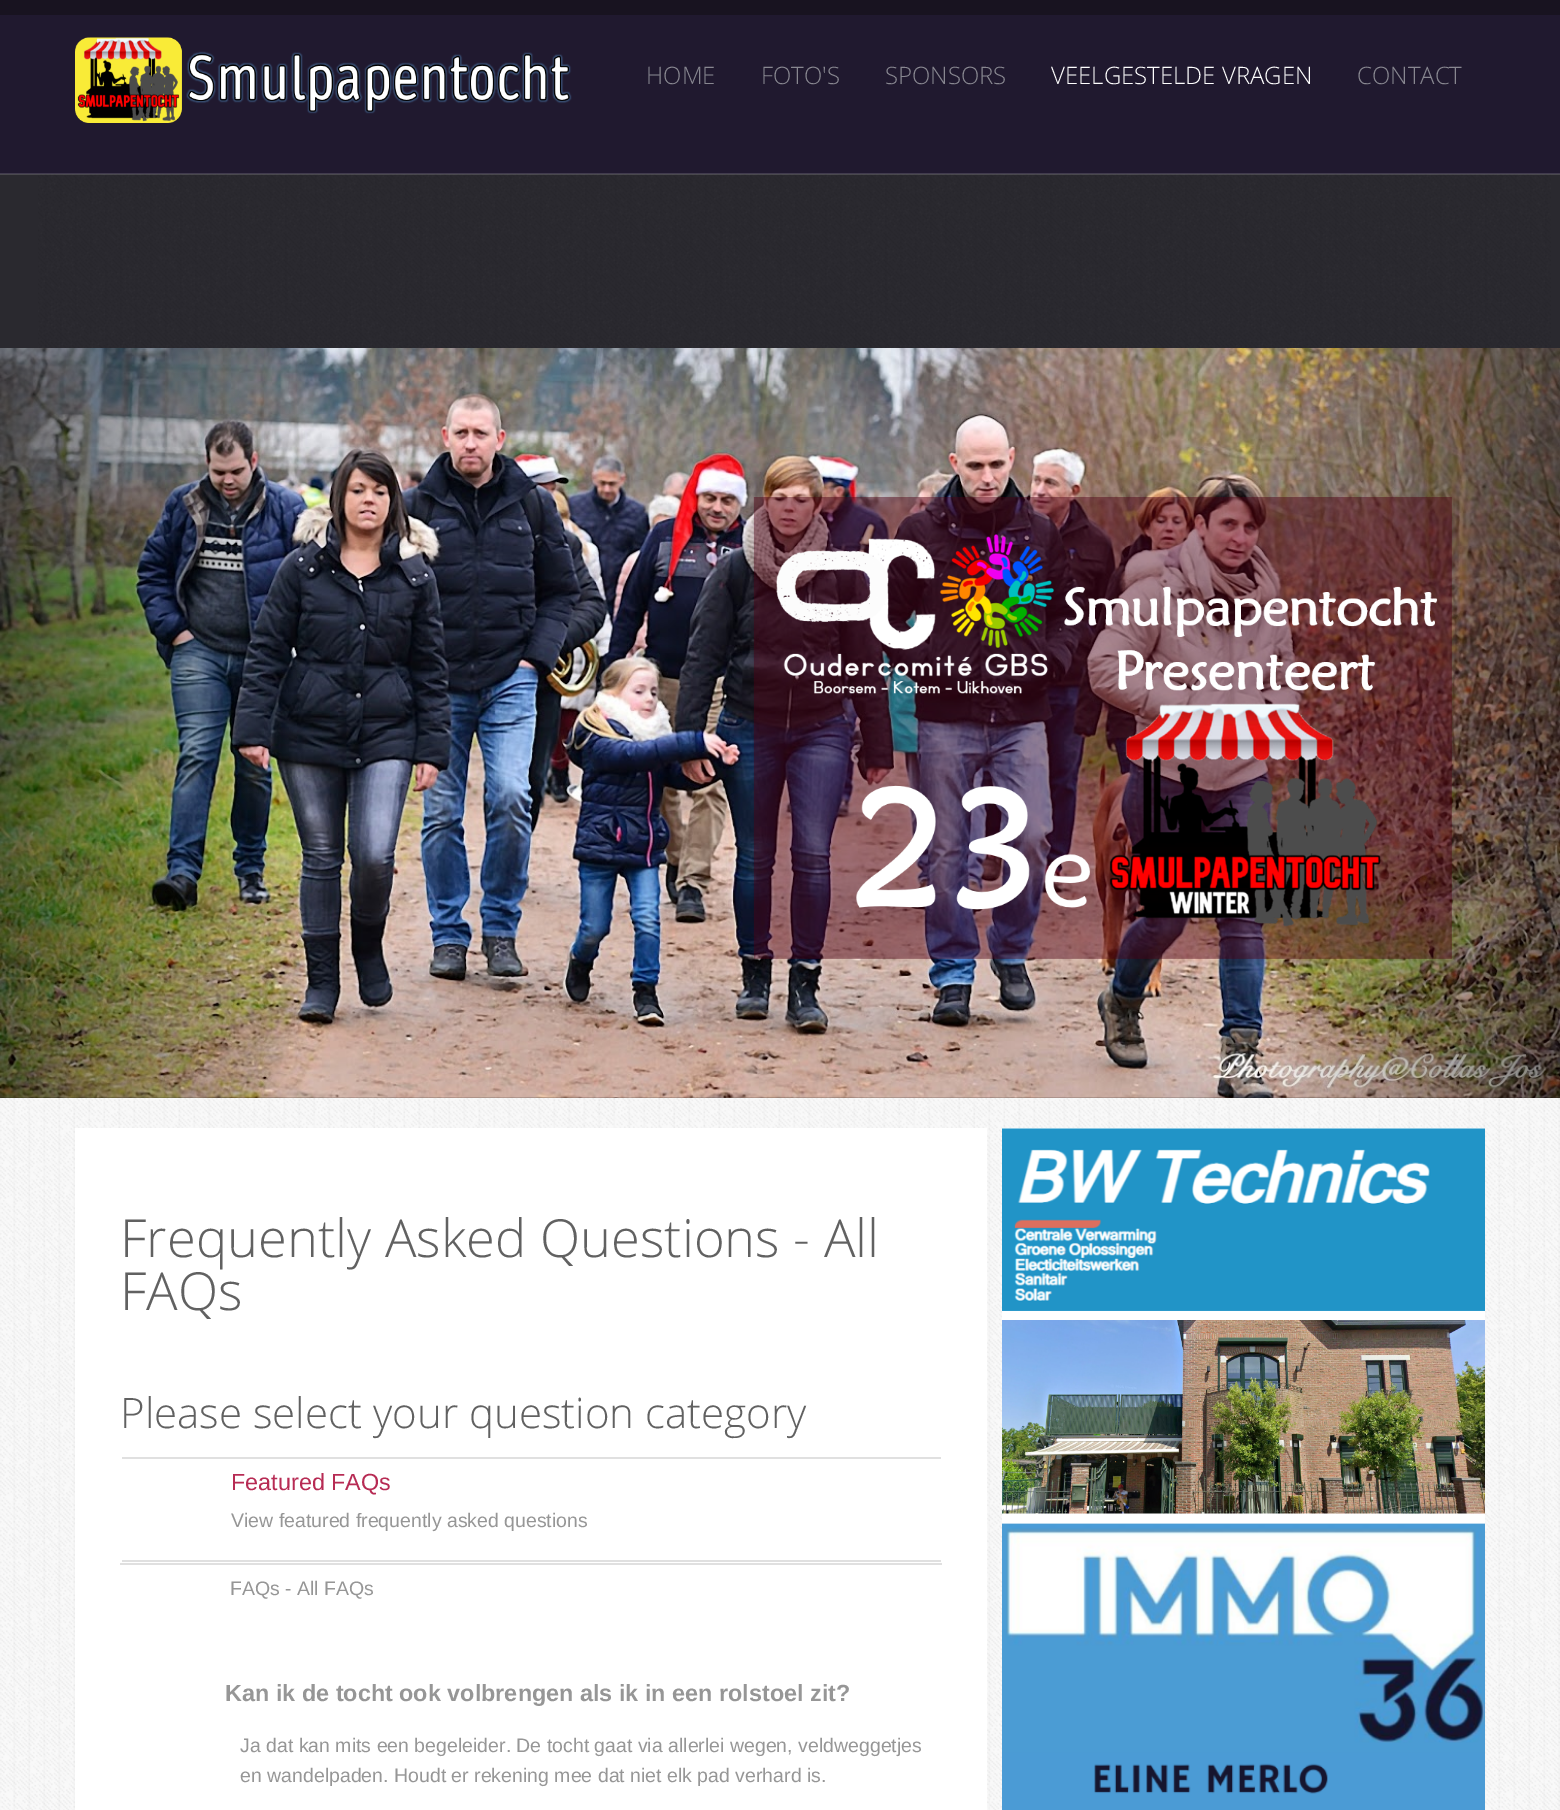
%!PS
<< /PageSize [1560 1810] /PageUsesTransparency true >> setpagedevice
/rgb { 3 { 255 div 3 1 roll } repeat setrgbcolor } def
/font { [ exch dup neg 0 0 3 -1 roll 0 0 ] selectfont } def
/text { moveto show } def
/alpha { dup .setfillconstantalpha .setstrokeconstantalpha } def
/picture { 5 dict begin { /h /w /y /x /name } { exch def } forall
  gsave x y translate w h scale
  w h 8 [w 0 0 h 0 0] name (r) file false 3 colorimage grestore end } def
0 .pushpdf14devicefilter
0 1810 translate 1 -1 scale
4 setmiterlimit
42 41 47 rgb
0 0 1560 1810 rectfill
(img_01.rgb) 38 174 1513 174 picture
24 19 32 rgb
0 0 1560 15 rectfill
32 25 47 rgb
0 15 1560 159 rectfill
0.15 alpha
255 255 255 rgb
0 173 1560 2 rectfill
1 alpha
(img_02.rgb) 75 37 497 86 picture
(img_03.rgb) 0 348 1560 750 picture
0.15 alpha
0 0 0 rgb
0 1097 1560 1 rectfill
1 alpha
(img_04.rgb) 753 497 699 462 picture
249 249 249 rgb
0 1098 1560 712 rectfill
(img_05.rgb) 0 1098 1560 712 picture
255 255 255 rgb
75 1128 912 682 rectfill
224 224 224 rgb
122 1457 819 2 rectfill
122 1560 819 2 rectfill
120 1563 822 2 rectfill
255 255 255 rgb
1002 1128 483 395 rectfill
(img_06.rgb) 1002 1128 483 183 picture
(img_07.rgb) 1002 1320 483 194 picture
(img_08.rgb) 1002 1523 483 287 picture
/OpenSans-Light 24 font
136 135 144 rgb
(HOME) 646 84 text
(FOTO'S) 761 84 text
(SPONSORS) 885 84 text
255 255 255 rgb
(VEELGESTELDE VRAGEN) 1051 84 text
136 135 144 rgb
(CONTACT) 1357 84 text
/OpenSans-Light 52.5 font
97 97 97 rgb
(Frequently Asked Questions - All) 120 1257 text
(FAQs) 120 1310 text
/OpenSans-Light 42 font
(Please select your question category) 120 1428 text
/LiberationSans-Regular 23.4 font
183 43 84 rgb
(Featured FAQs) 231 1490 text
/LiberationSans-Regular 19.5 font
150 150 150 rgb
(View featured frequently asked questions) 231 1527 text
(FAQs - All FAQs) 230 1595 text
/LiberationSans-Bold 23.4 font
(Kan ik de tocht ook volbrengen als ik in een rolstoel zit?) 225 1701 text
/LiberationSans-Regular 19.5 font
(Ja dat kan mits een begeleider. De tocht gaat via allerlei wegen, veldweggetjes) 240 1752 text
(en wandelpaden. Houdt er rekening mee dat niet elk pad verhard is.) 240 1782 text
.poppdf14devicefilter showpage
